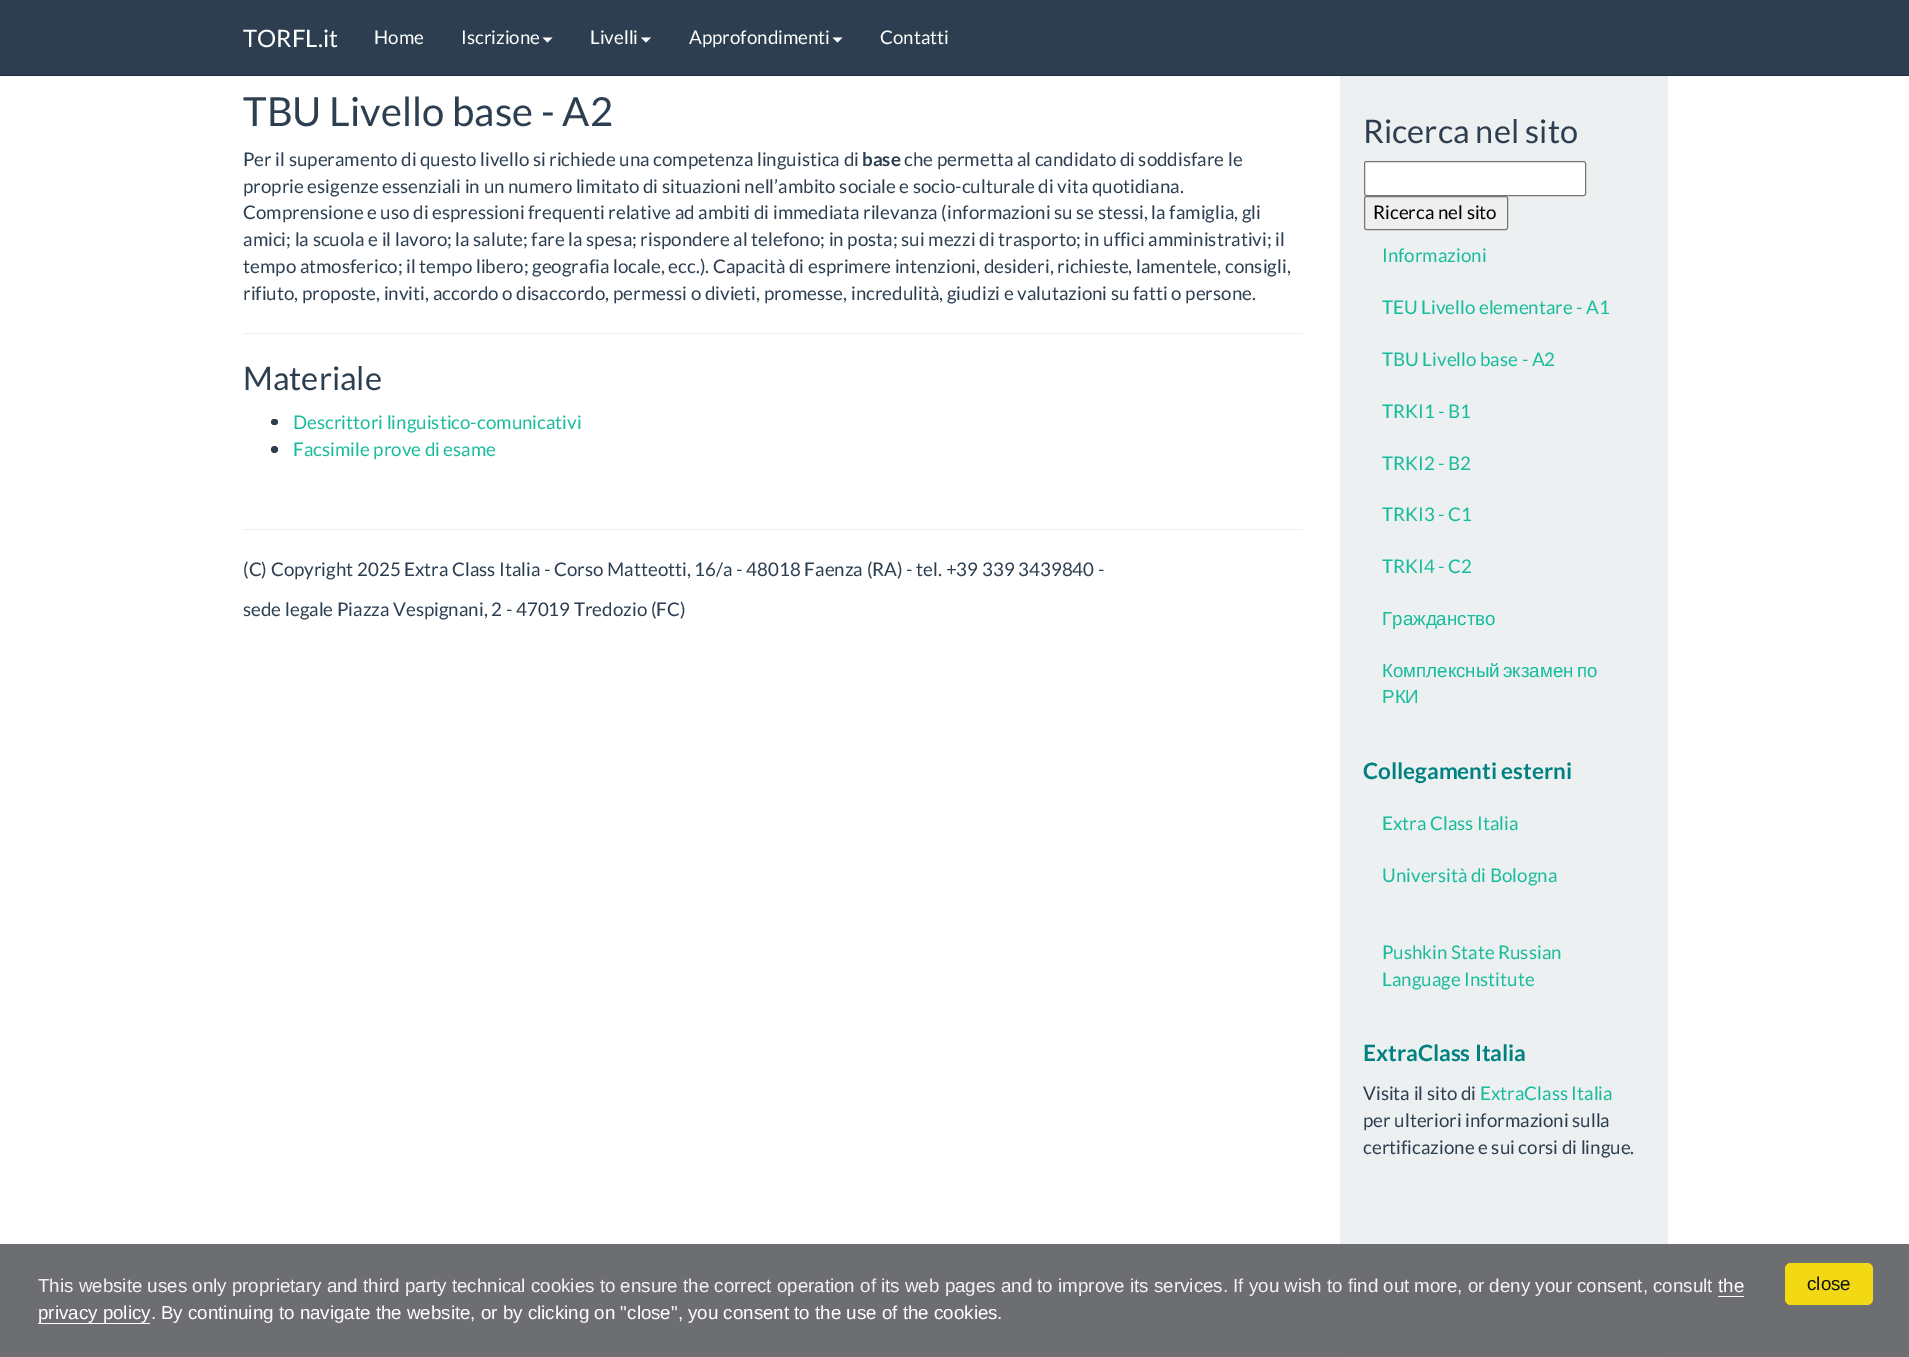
%!PS
<< /PageSize [1909 1357] /PageUsesTransparency true >> setpagedevice
/rgb { 3 { 255 div 3 1 roll } repeat setrgbcolor } def
/font { [ exch dup neg 0 0 3 -1 roll 0 0 ] selectfont } def
/text { moveto show } def
/alpha { dup .setfillconstantalpha .setstrokeconstantalpha } def
/circle { newpath 0 360 arc closepath } def
/roundrect { 5 dict begin { /r /h /w /y /x } { exch def } forall
  x r add y moveto x w add y 2 copy h add r arct x w add y h add x 1 index r arct
  x y h add x y r arct x y 2 copy exch w add exch r arct closepath end } def
0 .pushpdf14devicefilter
0 1357 translate 1 -1 scale
4 setmiterlimit
255 255 255 rgb
0 0 1909 1357 rectfill
236 240 241 rgb
1340 63 328 1291 5 roundrect fill
44 62 80 rgb
0 0 1909 75 rectfill
32 45 59 rgb
0 75 1909 1 rectfill
255 255 255 rgb
542.5 37.5 moveto 10 0 rlineto -5 5 rlineto closepath fill
641 37.5 moveto 10 0 rlineto -5 5 rlineto closepath fill
832.5 37.5 moveto 10 0 rlineto -5 5 rlineto closepath fill
236 240 241 rgb
243 333 1060 1 rectfill
44 62 80 rgb
271 419 7 6 3 roundrect fill
274.5 449.5 3.5 circle fill
236 240 241 rgb
243 529 1060 1 rectfill
255 255 255 rgb
1364.5 161.5 221 34 2 roundrect gsave fill grestore
118 118 118 rgb
stroke
239 239 239 rgb
1364.5 196.5 143 33 2 roundrect gsave fill grestore
118 118 118 rgb
stroke
0.92 alpha
97 98 101 rgb
0 1244 1909 113 rectfill
1 alpha
255 255 255 rgb
1718 1296 26 1 rectfill
38 1323 112 1 rectfill
242 217 20 rgb
1785 1263 88 42 6 roundrect fill
/Lato-Regular 24 font
255 255 255 rgb
(TORFL.it) 243 47 text
/Lato-Regular 18.75 font
(Home) 374 44 text
(Iscrizione) 461 44 text
(Livelli) 590 44 text
(Approfondimenti) 689 44 text
(Contatti) 880 44 text
/Lato-Regular 40 font
44 62 80 rgb
(TBU Livello base - A2) 243 126 text
/Lato-Regular 18.75 font
(Per il superamento di questo livello si richiede una competenza linguistica di) 243 166 text
/Lato-Bold 18.75 font
(base) 862 166 text
/Lato-Regular 18.75 font
(che permetta al candidato di soddisfare le) 904 166 text
(proprie esigenze essenziali in un numero limitato di situazioni nell’ambito sociale e socio-culturale di vita quotidiana.) 243 193 text
(Comprensione e uso di espressioni frequenti relative ad ambiti di immediata rilevanza \(informazioni su se stessi, la famiglia, gli) 243 219 text
(amici; la scuola e il lavoro; la salute; fare la spesa; rispondere al telefono; in posta; sui mezzi di trasporto; in uffici amministrativi; il) 243 246 text
(tempo atmosferico; il tempo libero; geografia locale, ecc.\). Capacità di esprimere intenzioni, desideri, richieste, lamentele, consigli,) 243 273 text
(rifiuto, proposte, inviti, accordo o disaccordo, permessi o divieti, promesse, incredulità, giudizi e valutazioni su fatti o persone.) 243 300 text
/Lato-Regular 32.5 font
(Materiale) 243 390 text
/Lato-Regular 18.75 font
24 188 156 rgb
(Descrittori linguistico-comunicativi) 293 429 text
(Facsimile prove di esame) 293 456 text
44 62 80 rgb
(\(C\) Copyright 2025 Extra Class Italia - Corso Matteotti, 16/a - 48018 Faenza \(RA\) - tel. +39 339 3439840 -) 243 576 text
(sede legale Piazza Vespignani, 2 - 47019 Tredozio \(FC\)) 243 616 text
/Lato-Regular 32.5 font
(Ricerca nel sito) 1363 143 text
/Lato-Regular 18.75 font
0 0 0 rgb
(Ricerca nel sito) 1373 219 text
24 188 156 rgb
(Informazioni) 1382 262 text
(TEU Livello elementare - A1) 1382 314 text
(TBU Livello base - A2) 1382 366 text
(TRKI1 - B1) 1382 418 text
(TRKI2 - B2) 1382 470 text
(TRKI3 - C1) 1382 521 text
(TRKI4 - C2) 1382 573 text
/LiberationSans-Regular 18.75 font
(Гражданство) 1382 625 text
1382 677 moveto -2 0 32 (Комплексный экзамен по) widthshow
(РКИ) 1382 703 text
/Lato-Bold 22.5 font
0 128 128 rgb
(Collegamenti esterni) 1363 779 text
/Lato-Regular 18.75 font
24 188 156 rgb
(Extra Class Italia) 1382 830 text
(Università di Bologna) 1382 882 text
(Pushkin State Russian) 1382 959 text
(Language Institute) 1382 986 text
/Lato-Bold 22.5 font
0 128 128 rgb
(ExtraClass Italia) 1363 1061 text
/Lato-Regular 18.75 font
44 62 80 rgb
(Visita il sito di) 1363 1100 text
24 188 156 rgb
(ExtraClass Italia) 1480 1100 text
44 62 80 rgb
(per ulteriori informazioni sulla) 1363 1127 text
(certificazione e sui corsi di lingue.) 1363 1154 text
/LiberationSans-Regular 18.75 font
243 243 244 rgb
(This website uses only proprietary and third party technical cookies to ensure the correct operation of its web pages and to improve its services. If you wish to find out more, or deny your consent, consult) 38 1292 text
255 255 255 rgb
(the) 1718 1292 text
(privacy policy. By continuing to navigate the website, or by clicking on "close", you consent to the use of the cookies.) 38 1319 text
20 20 20 rgb
(close) 1807 1290 text
.poppdf14devicefilter showpage
